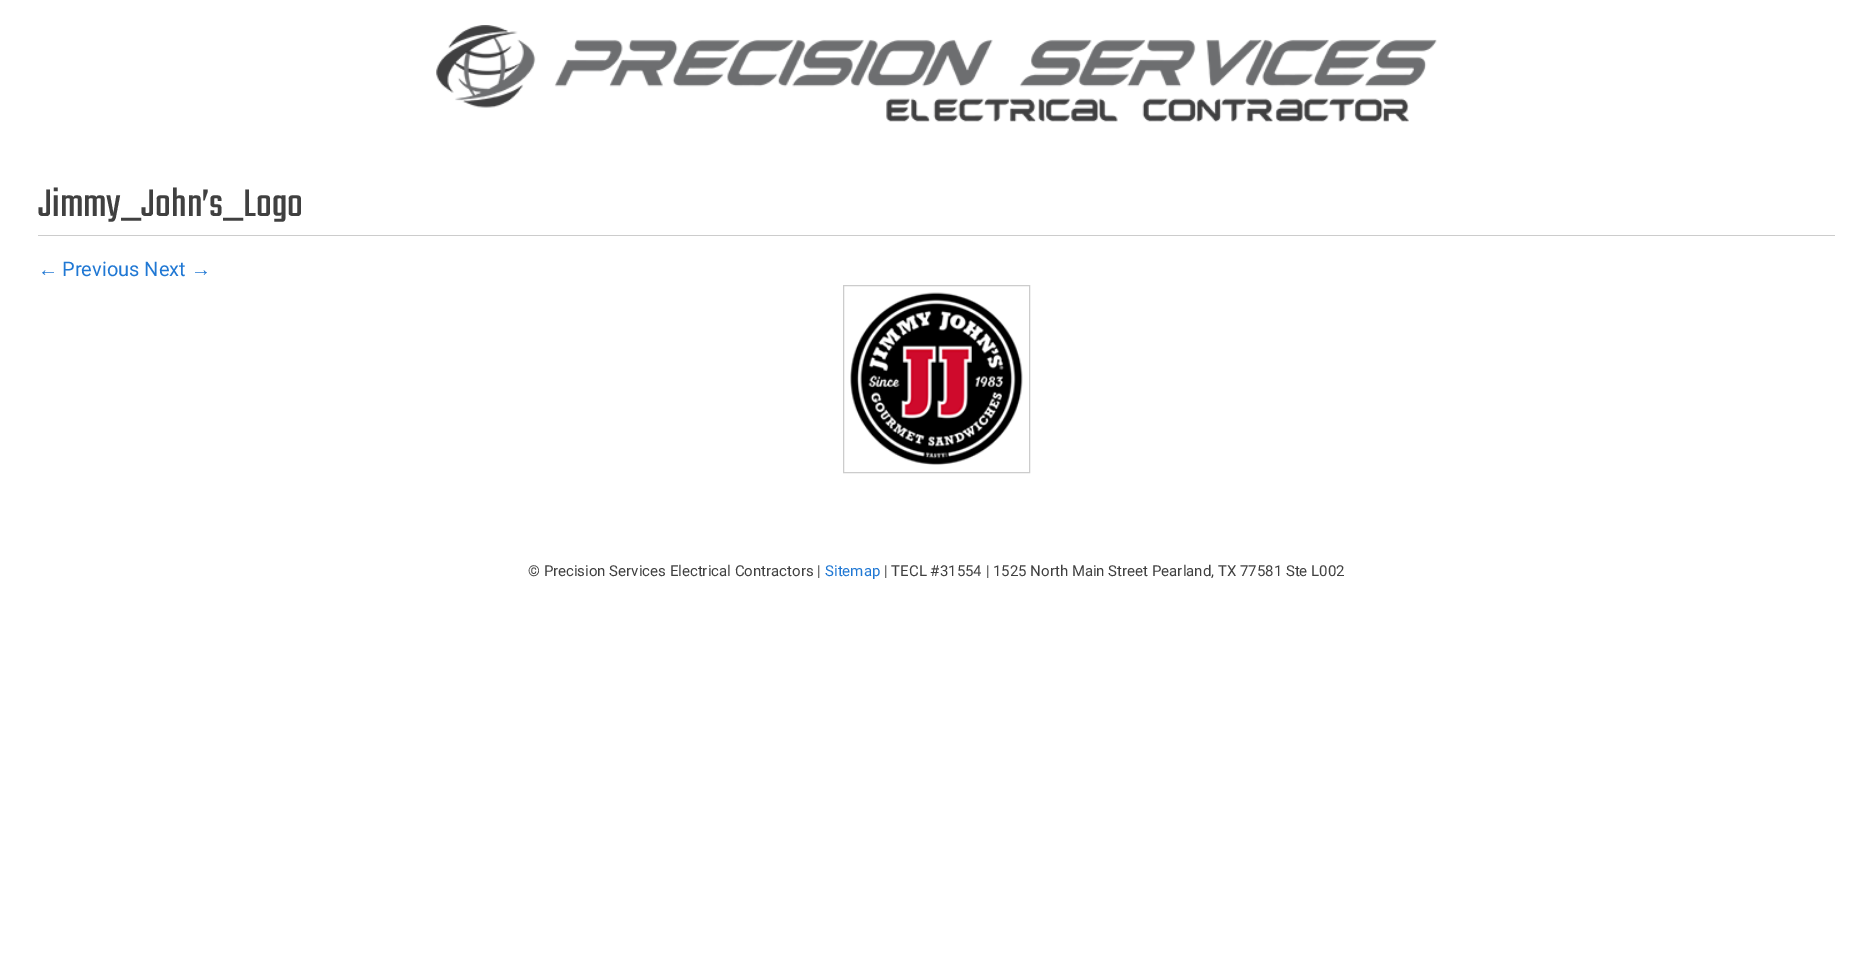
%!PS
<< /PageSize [1872 956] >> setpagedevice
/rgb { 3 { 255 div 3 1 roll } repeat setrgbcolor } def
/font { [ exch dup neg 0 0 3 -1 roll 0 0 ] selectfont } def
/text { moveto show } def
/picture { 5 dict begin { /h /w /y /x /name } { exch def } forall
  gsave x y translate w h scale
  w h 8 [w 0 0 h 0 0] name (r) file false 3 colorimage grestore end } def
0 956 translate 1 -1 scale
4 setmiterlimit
255 255 255 rgb
0 0 1872 956 rectfill
(img_01.rgb) 436 25 1001 97 picture
204 204 204 rgb
38 235 1797 1 rectfill
843.5 285.5 186 187 rectstroke
(img_02.rgb) 850 292 173 173 picture
/Teko-Regular 42.5 font
64 64 64 rgb
(Jimmy_John’s_Logo) 38 216 text
/LiberationSans-Regular 20 font
32 120 212 rgb
(←) 38 276 text
/Roboto-Regular 20 font
(Previous Next) 62 276 text
/LiberationSans-Regular 20 font
(→) 191 276 text
/Roboto-Regular 15 font
64 64 64 rgb
(© Precision Services Electrical Contractors |) 528 576 text
32 120 212 rgb
(Sitemap) 825 576 text
64 64 64 rgb
(| TECL #31554 | 1525 North Main Street Pearland, TX 77581 Ste L002) 884 576 text
showpage
